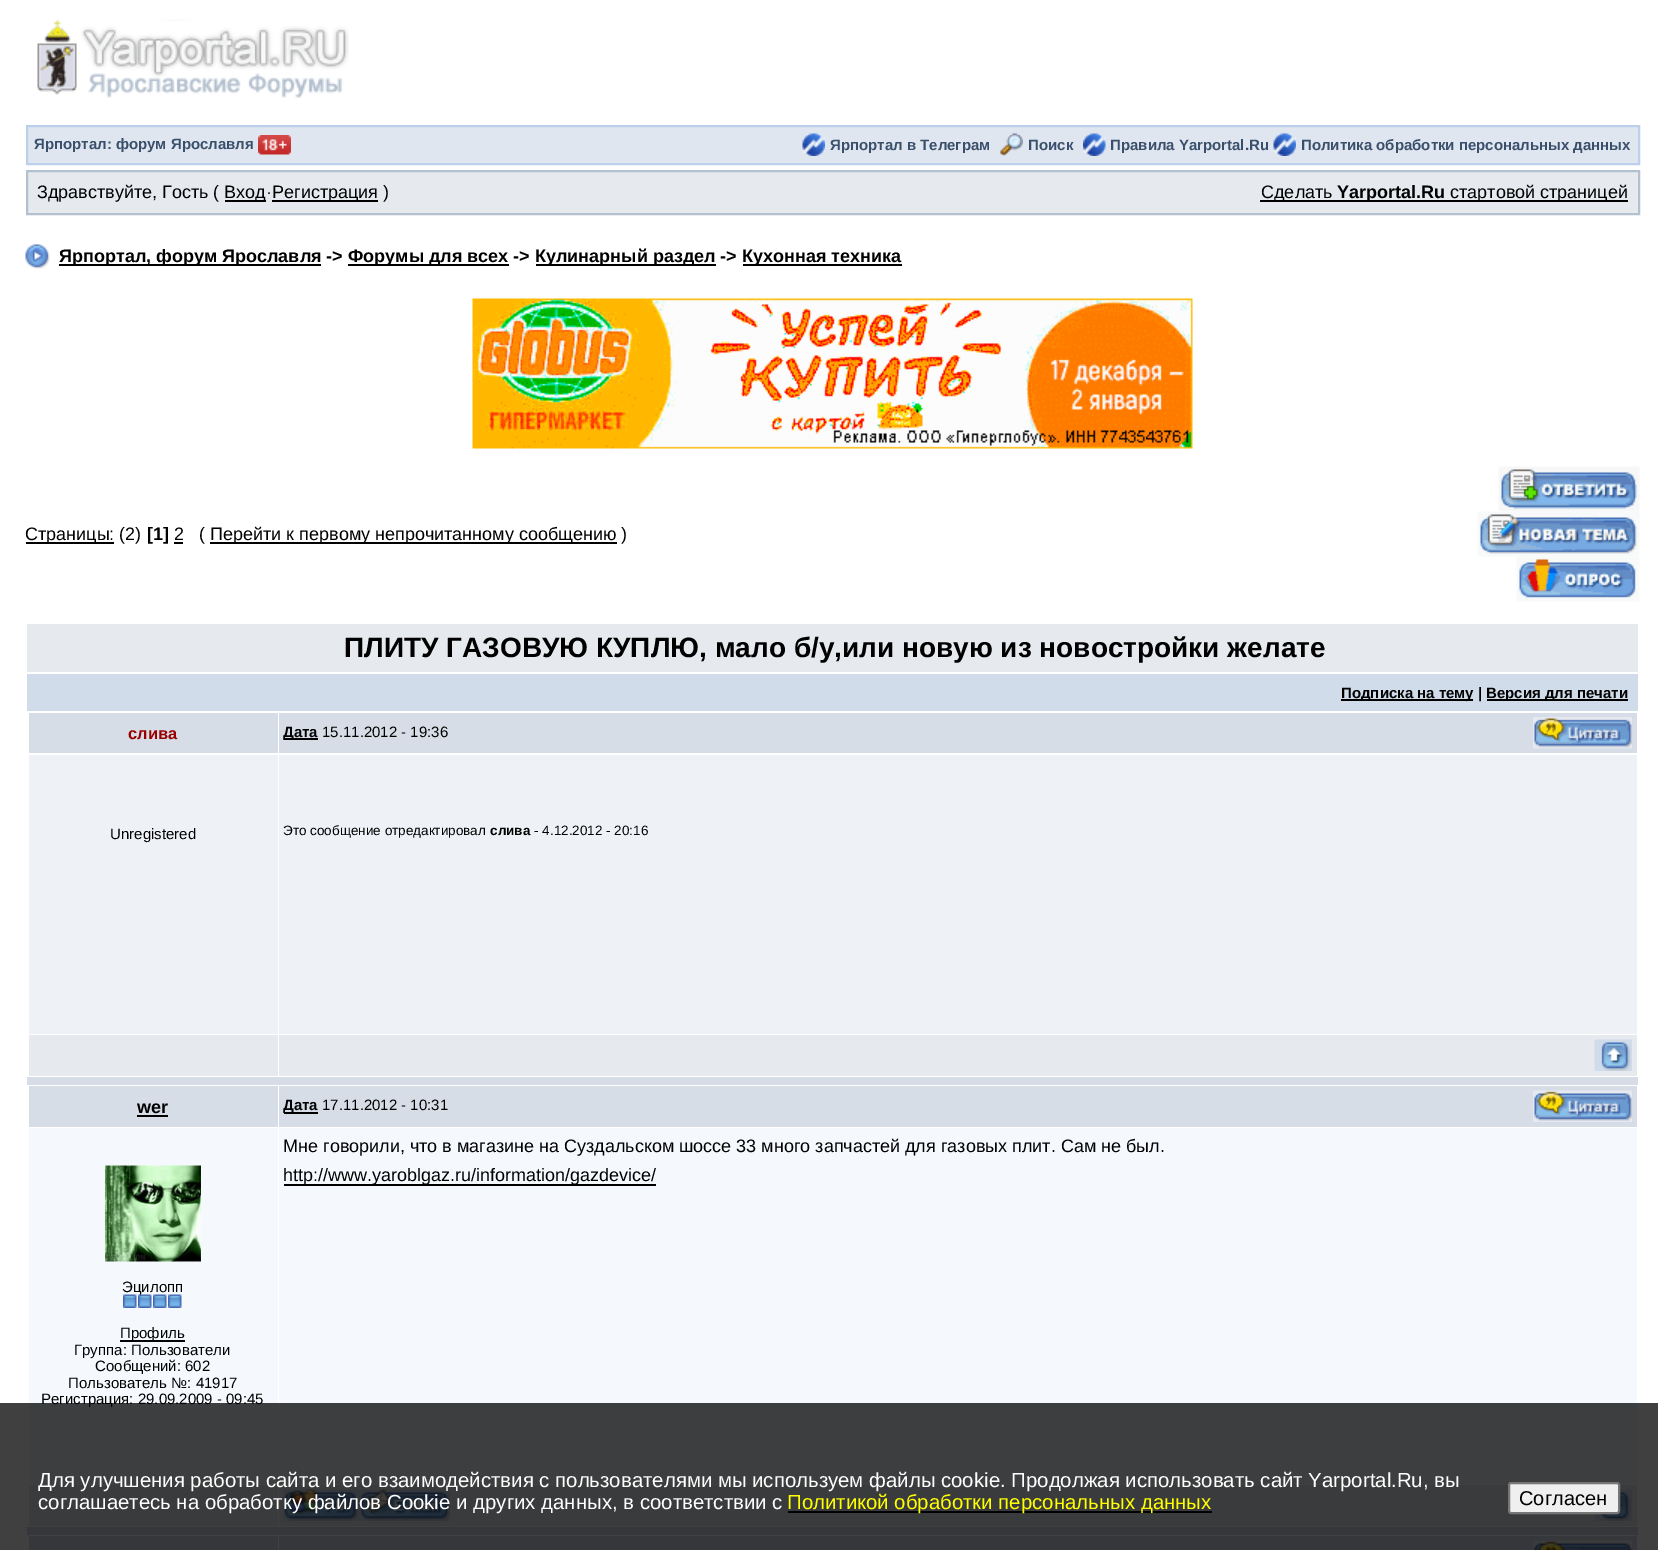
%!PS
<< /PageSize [1664 1550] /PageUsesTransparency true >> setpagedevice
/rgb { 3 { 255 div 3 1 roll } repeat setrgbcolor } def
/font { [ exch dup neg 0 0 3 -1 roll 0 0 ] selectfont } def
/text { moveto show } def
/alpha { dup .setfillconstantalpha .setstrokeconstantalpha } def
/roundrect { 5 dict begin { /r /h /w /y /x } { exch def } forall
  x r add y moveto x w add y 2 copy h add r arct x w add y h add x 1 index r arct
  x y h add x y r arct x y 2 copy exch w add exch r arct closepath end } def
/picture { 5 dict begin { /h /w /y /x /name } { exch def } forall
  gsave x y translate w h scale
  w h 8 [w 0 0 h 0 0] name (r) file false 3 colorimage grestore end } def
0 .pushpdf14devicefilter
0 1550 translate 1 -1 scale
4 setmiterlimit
255 255 255 rgb
0 0 1664 1550 rectfill
(img_01.rgb) 37 19 312 79 picture
223 230 239 rgb
27 126 moveto 1612 0 rlineto 0 38 rlineto -1612 0 rlineto closepath gsave fill grestore
188 208 237 rgb
2 setlinewidth
stroke
(img_02.rgb) 258 135 33 20 picture
(img_03.rgb) 802 133 23 23 picture
(img_04.rgb) 1000 133 23 23 picture
(img_05.rgb) 1083 133 23 23 picture
(img_06.rgb) 1273 133 23 23 picture
230 234 239 rgb
27 171 moveto 1612 0 rlineto 0 43 rlineto -1612 0 rlineto closepath gsave fill grestore
179 192 207 rgb
stroke
0 0 0 rgb
225 200 41 2 rectfill
272 200 106 2 rectfill
1260 200 368 2 rectfill
(img_07.rgb) 25 244 25 25 picture
59 264 262 2 rectfill
348 264 161 2 rectfill
536 264 180 2 rectfill
743 264 159 2 rectfill
(img_08.rgb) 472 298 721 151 picture
26 542 88 2 rectfill
174 542 9 2 rectfill
210 542 407 2 rectfill
(img_09.rgb) 1498 466 142 46 picture
(img_10.rgb) 1477 511 163 46 picture
(img_11.rgb) 1516 557 124 45 picture
230 234 239 rgb
27 624 1611 48 rectfill
209 220 235 rgb
27 674 1611 37 rectfill
0 0 0 rgb
1341 699 132 2 rectfill
1487 699 141 2 rectfill
215 221 230 rgb
29 713 249 40 rectfill
279 713 1358 40 rectfill
0 0 0 rgb
284 738 34 2 rectfill
(img_12.rgb) 1533 717 99 32 picture
238 242 247 rgb
29 755 249 279 rectfill
279 755 1358 279 rectfill
230 234 239 rgb
29 1035 249 41 rectfill
279 1035 1358 41 rectfill
(img_13.rgb) 1594 1039 38 32 picture
215 221 230 rgb
27 1077 1611 8 rectfill
29 1086 249 41 rectfill
0 0 0 rgb
137 1115 31 2 rectfill
215 221 230 rgb
279 1086 1358 41 rectfill
0 0 0 rgb
284 1112 34 2 rectfill
(img_14.rgb) 1533 1090 99 32 picture
245 249 253 rgb
279 1128 1358 356 rectfill
0 0 0 rgb
284 1184 372 2 rectfill
245 249 253 rgb
29 1128 249 356 rectfill
(img_15.rgb) 105 1165 96 97 picture
0 0 0 rgb
120 1340 65 2 rectfill
230 234 239 rgb
29 1485 249 41 rectfill
279 1485 1358 41 rectfill
(img_18.rgb) 283 1489 77 32 picture
(img_19.rgb) 360 1489 90 32 picture
(img_13.rgb) 1594 1489 38 32 picture
215 221 230 rgb
27 1527 1611 8 rectfill
29 1536 249 14 rectfill
279 1536 1358 14 rectfill
(img_20.rgb) 1533 1540 99 10 picture
/LiberationSans-Bold 15 font
58 79 108 rgb
(Ярпортал: форум Ярославля) 34 149 text
(Ярпортал в Телеграм) 830 150 text
(Поиск) 1028 150 text
(Правила Yarportal.Ru) 1110 150 text
(Политика обработки персональных данных) 1301 150 text
/LiberationSans-Regular 18 font
0 0 0 rgb
(Здравствуйте, Гость \() 37 198 text
(Вход·) 224 198 text
(Регистрация \)) 272 198 text
(Сделать) 1261 198 text
/LiberationSans-Bold 18 font
(Yarportal.Ru) 1337 198 text
/LiberationSans-Regular 18 font
(стартовой страницей) 1450 198 text
/LiberationSans-Bold 18 font
(Ярпортал, форум Ярославля ->) 59 262 text
(Форумы для всех ->) 348 262 text
(Кулинарный раздел ->) 535 262 text
(Кухонная техника) 742 262 text
/LiberationSans-Regular 18 font
(Страницы: \(2\)) 25 540 text
/LiberationSans-Bold 18 font
([1]) 147 540 text
/LiberationSans-Regular 18 font
(2) 174 540 text
(\() 199 540 text
(Перейти к первому непрочитанному сообщению \)) 210 540 text
/LiberationSans-Bold 28 font
(ПЛИТУ ГАЗОВУЮ КУПЛЮ, мало б/у,или новую из новостройки желате) 344 657 text
/LiberationSans-Bold 15 font
(Подписка на тему |) 1341 698 text
(Версия для печати) 1486 698 text
/LiberationSans-Bold 16.5 font
153 0 0 rgb
(слива) 128 739 text
/LiberationSans-Bold 15 font
0 0 0 rgb
(Дата) 283 737 text
/LiberationSans-Regular 15 font
(15.11.2012 - 19:36) 322 737 text
(Unregistered) 110 839 text
/LiberationSans-Regular 13.5 font
(Это сообщение отредактировал) 283 835 text
/LiberationSans-Bold 13.5 font
(слива) 490 835 text
/LiberationSans-Regular 13.5 font
(- 4.12.2012 - 20:16) 534 835 text
/LiberationSans-Bold 18 font
(wer) 137 1113 text
/LiberationSans-Bold 15 font
(Дата) 283 1110 text
/LiberationSans-Regular 15 font
(17.11.2012 - 10:31) 322 1110 text
/LiberationSans-Regular 18 font
(Мне говорили, что в магазине на Суздальском шоссе 33 много запчастей для газовых плит. Сам не был.) 283 1152 text
(http://www.yaroblgaz.ru/information/gazdevice/) 283 1181 text
/LiberationSans-Regular 15 font
(Эцилопп) 122 1292 text
(img_16.rgb) 123 1294 14 14 picture
(img_17.rgb) 138 1294 14 14 picture
(img_16.rgb) 153 1294 14 14 picture
(img_16.rgb) 168 1294 14 14 picture
(Профиль) 120 1338 text
(Группа: Пользователи) 74 1355 text
(Сообщений: 602) 95 1371 text
(Пользователь №: 41917) 68 1388 text
(Регистрация: 29.09.2009 - 09:45) 41 1404 text
0.75 alpha
0 1403 1658 147 rectfill
/LiberationSans-Regular 20.4 font
1 alpha
255 255 255 rgb
(Для улучшения работы сайта и его взаимодействия с пользователями мы используем файлы cookie. Продолжая использовать сайт Yarportal.Ru, вы) 38 1487 text
(соглашаетесь на обработку файлов Сookie и других данных, в соответствии с) 38 1509 text
0 0 0 rgb
788 1511 424 2 rectfill
255 255 0 rgb
(Политикой обработки персональных данных) 787 1509 text
239 239 239 rgb
1509 1483 110 30 2 roundrect gsave fill grestore
118 118 118 rgb
stroke
/LiberationSans-Regular 20 font
0 0 0 rgb
(Согласен) 1519 1505 text
.poppdf14devicefilter showpage
